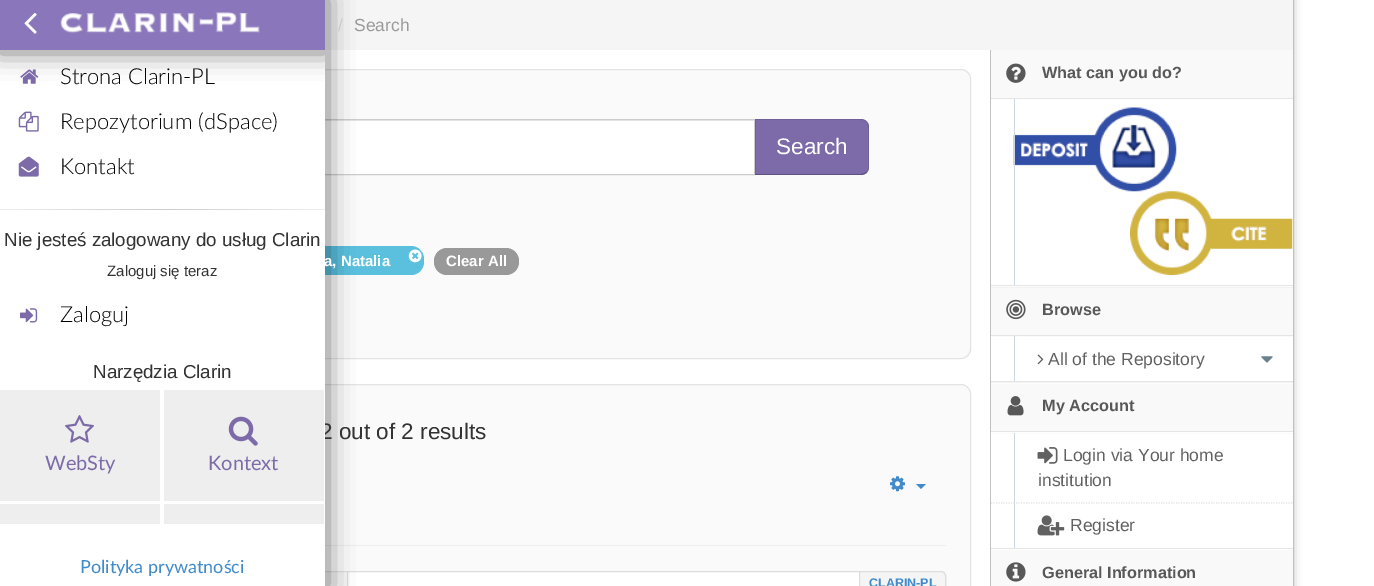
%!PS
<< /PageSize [1374 586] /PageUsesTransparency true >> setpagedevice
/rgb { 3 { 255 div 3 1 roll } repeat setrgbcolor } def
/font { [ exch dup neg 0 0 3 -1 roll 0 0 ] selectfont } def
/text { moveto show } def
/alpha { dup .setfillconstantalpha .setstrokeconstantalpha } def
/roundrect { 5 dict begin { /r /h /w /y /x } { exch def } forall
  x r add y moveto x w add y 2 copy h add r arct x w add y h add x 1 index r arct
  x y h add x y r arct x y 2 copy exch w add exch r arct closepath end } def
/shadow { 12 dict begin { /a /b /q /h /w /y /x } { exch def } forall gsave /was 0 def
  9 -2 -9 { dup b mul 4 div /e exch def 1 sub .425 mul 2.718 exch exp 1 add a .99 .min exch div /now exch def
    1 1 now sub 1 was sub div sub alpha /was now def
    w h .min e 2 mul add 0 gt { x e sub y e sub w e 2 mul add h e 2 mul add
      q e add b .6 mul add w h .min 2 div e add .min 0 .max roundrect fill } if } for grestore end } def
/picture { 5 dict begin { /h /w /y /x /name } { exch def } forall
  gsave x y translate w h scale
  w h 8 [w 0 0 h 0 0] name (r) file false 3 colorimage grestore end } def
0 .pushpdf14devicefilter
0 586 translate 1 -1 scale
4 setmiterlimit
255 255 255 rgb
0 0 1374 586 rectfill
192 192 192 rgb
81 0 1213 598 0 4 1 shadow
255 255 255 rgb
325 50 665 536 rectfill
245 245 245 rgb
325 0 968 50 rectfill
250 250 250 rgb
101.5 69.5 869 289 9.5 roundrect gsave fill grestore
227 227 227 rgb
stroke
255 255 255 rgb
325 121 429 53 rectfill
236 236 236 rgb
325 120 429 1 rectfill
204 204 204 rgb
274.5 119.5 480 55 rectstroke
91 192 222 rgb
153 246 271 29 13 roundrect fill
250 250 250 rgb
101.5 384.5 869 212 9.5 roundrect gsave fill grestore
227 227 227 rgb
stroke
238 238 238 rgb
325 545 621 1 rectfill
255 255 255 rgb
126.5 571.5 819 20 4.5 roundrect gsave fill grestore
221 221 221 rgb
stroke
245 245 245 rgb
325 572 22 14 rectfill
221 221 221 rgb
126.5 571.5 221 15 rectstroke
0 0 0 rgb
-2 -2 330 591 0 12.5 0.5 shadow
192 192 192 rgb
1293 0 1 586 rectfill
125 107 169 rgb
755 119 moveto 106 0 rlineto 4.5 0 8 3.5 8 8 rcurveto 0 40 rlineto 0 4.5 -3.5 8 -8 8 rcurveto -106 0 rlineto closepath fill
0.1 alpha
0 0 0 rgb
866 121 moveto -1 -1 -3 -2 -5 -2 rcurveto -106 0 rlineto 1 1 rlineto 105 0 rlineto 2 0 4 1 5 2 rcurveto closepath fill
866 121 moveto 3 3 rlineto 0 46 rlineto -2 3 rlineto -1 -1 rlineto 1 -1 2 -2 2 -4 rcurveto 0 -42 rlineto 0 -2 -1 -3 -2 -4 rcurveto closepath fill
0.25 alpha
861 175 moveto 2 0 4 -1 6 -2 rcurveto -1 -1 rlineto -1 1 -3 2 -5 2 rcurveto -105 0 rlineto -1 1 rlineto closepath fill
0.1 alpha
756 120 moveto -1 -1 rlineto 0 56 rlineto 1 -1 rlineto closepath fill
1 alpha
(img_09.rgb) 408 249 14 14 picture
153 153 153 rgb
434 248 85 27 13 roundrect fill
(img_10.rgb) 890 476 15 16 picture
66 139 202 rgb
916 484 moveto 10 0 rlineto -5 5 rlineto closepath fill
245 245 245 rgb
859.5 571.5 moveto 81.5 0 rlineto 2.5 0 4.5 2 4.5 4.5 rcurveto 0 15.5 rlineto -81.5 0 rlineto -2.5 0 -4.5 -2 -4.5 -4.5 rcurveto closepath gsave fill grestore
221 221 221 rgb
stroke
242 242 242 rgb
991 287 302 96 rectfill
229 229 229 rgb
991 285 302 1 rectfill
249 249 249 rgb
991 50 302 48 rectfill
(img_11.rgb) 1006 63 20 20 picture
255 255 255 rgb
991 99 302 186 rectfill
229 229 229 rgb
991 98 302 1 rectfill
(img_12.rgb) 1013 107 164 85 picture
204 215 226 rgb
1014 99 1 186 rectfill
(img_13.rgb) 1130 191 163 84 picture
252 252 252 rgb
991 286 302 1 rectfill
229 229 229 rgb
991 381 302 1 rectfill
249 249 249 rgb
991 288 302 47 rectfill
(img_14.rgb) 1006 299 20 21 picture
255 255 255 rgb
991 337 302 44 rectfill
229 229 229 rgb
991 335 302 1 rectfill
250 250 250 rgb
991 336 302 1 rectfill
204 215 226 rgb
1014 336 1 45 rectfill
(img_15.rgb) 1037 354 7 11 picture
(img_16.rgb) 1261 356 12 7 picture
252 252 252 rgb
991 383 302 1 rectfill
229 229 229 rgb
991 548 302 1 rectfill
249 249 249 rgb
991 384 302 47 rectfill
(img_17.rgb) 1007 396 17 20 picture
255 255 255 rgb
991 432 302 116 rectfill
229 229 229 rgb
991 431 302 1 rectfill
250 250 250 rgb
991 433 302 1 rectfill
228 228 228 rgb
1.2 setlinewidth
[1.25 1.25] 0 setdash
991 503 moveto 301.5 0 rlineto stroke
204 215 226 rgb
1014 433 1 115 rectfill
(img_18.rgb) 1037 447 21 17 picture
(img_19.rgb) 1037 515 28 21 picture
252 252 252 rgb
991 549 302 1 rectfill
249 249 249 rgb
991 550 302 36 rectfill
(img_20.rgb) 1006 562 20 20 picture
/LiberationSans-Regular 17.5 font
204 204 204 rgb
(/) 338 31 text
153 153 153 rgb
(Search) 354 31 text
/LiberationSans-Regular 22.5 font
255 255 255 rgb
(Search) 776 154 text
/LiberationSans-Bold 15 font
(a, Natalia) 324 266 text
(Clear All) 446 266 text
/LiberationSans-Regular 22.5 font
51 51 51 rgb
(2 out of 2 results) 320 439 text
255 255 255 rgb
0 50 325 536 rectfill
/Lato-Light 22 font
0 0 0 rgb
(Zaloguj) 60 322 text
(img_06.rgb) 20 308 18 15 picture
(Kontakt) 60 174 text
(img_05.rgb) 18 156 21 21 picture
(Repozytorium \(dSpace\)) 60 129 text
(img_04.rgb) 18 111 21 21 picture
gsave
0 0 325 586 rectclip
-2 -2 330 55 0 12.5 0.5 shadow
grestore
(Strona Clarin-PL) 60 84 text
(img_03.rgb) 20 69 19 15 picture
/Lato-Regular 18 font
66 139 202 rgb
(Polityka prywatności) 80 573 text
138 118 186 rgb
0 0 325 50 rectfill
(img_01.rgb) 24 12 13 22 picture
(img_02.rgb) 60 12 200 22 picture
238 238 238 rgb
164 504 160 20 rectfill
164 390 160 111 rectfill
/Lato-Regular 20 font
125 107 169 rgb
(Kontext) 208 470 text
(img_08.rgb) 228 416 30 30 picture
238 238 238 rgb
0 504 160 20 rectfill
0 390 160 111 rectfill
125 107 169 rgb
(WebSty) 45 470 text
(img_07.rgb) 65 415 29 28 picture
/LiberationSans-Regular 18.75 font
51 51 51 rgb
(Narzędzia Clarin) 93 378 text
gsave 0 209 moveto 325 0 rlineto 0 1 rlineto -325 0 rlineto closepath clip newpath
<< /ShadingType 2 /ColorSpace /DeviceRGB /Coords [0 209 325 209] /Extend [true true] /Function << /FunctionType 3 /Domain [0 1] /Functions [<< /FunctionType 2 /Domain [0 1] /C0 [0.933 0.933 0.933] /C1 [0.8 0.8 0.8] /N 1 >> << /FunctionType 2 /Domain [0 1] /C0 [0.8 0.8 0.8] /C1 [0.933 0.933 0.933] /N 1 >>] /Bounds [0.5] /Encode [0 1 0 1] >> >> shfill grestore
/LiberationSans-Regular 15 font
(Zaloguj się teraz) 107 276 text
/LiberationSans-Regular 18.75 font
(Nie jesteś zalogowany do usług Clarin) 4 246 text
/LiberationSans-Bold 12.5 font
66 139 202 rgb
(CLARIN-PL) 869 587 text
/LiberationSans-Bold 16.25 font
88 88 88 rgb
(What can you do?) 1042 78 text
(Browse) 1042 315 text
/LiberationSans-Regular 17.5 font
97 97 97 rgb
(All of the Repository) 1048 365 text
/LiberationSans-Bold 16.25 font
88 88 88 rgb
(My Account) 1042 411 text
/LiberationSans-Regular 17.5 font
97 97 97 rgb
(Login via Your home) 1063 461 text
(institution) 1038 486 text
(Register) 1070 531 text
/LiberationSans-Bold 16.25 font
88 88 88 rgb
(General Information) 1042 578 text
.poppdf14devicefilter showpage
